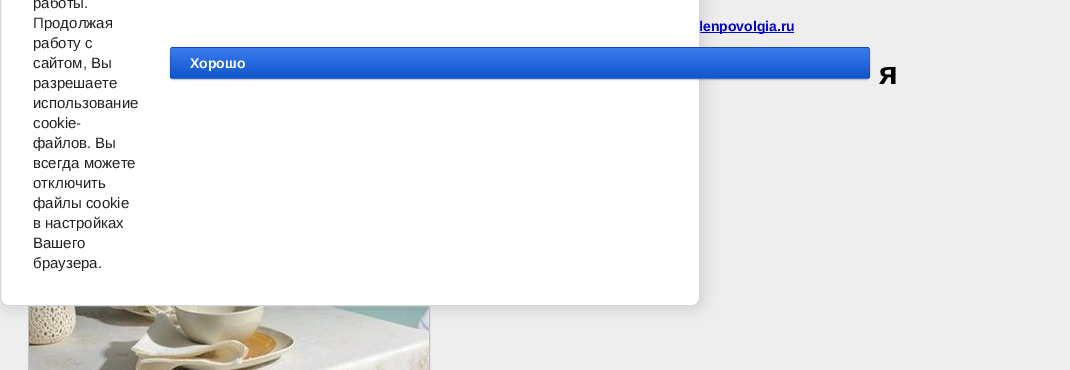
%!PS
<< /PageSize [1070 370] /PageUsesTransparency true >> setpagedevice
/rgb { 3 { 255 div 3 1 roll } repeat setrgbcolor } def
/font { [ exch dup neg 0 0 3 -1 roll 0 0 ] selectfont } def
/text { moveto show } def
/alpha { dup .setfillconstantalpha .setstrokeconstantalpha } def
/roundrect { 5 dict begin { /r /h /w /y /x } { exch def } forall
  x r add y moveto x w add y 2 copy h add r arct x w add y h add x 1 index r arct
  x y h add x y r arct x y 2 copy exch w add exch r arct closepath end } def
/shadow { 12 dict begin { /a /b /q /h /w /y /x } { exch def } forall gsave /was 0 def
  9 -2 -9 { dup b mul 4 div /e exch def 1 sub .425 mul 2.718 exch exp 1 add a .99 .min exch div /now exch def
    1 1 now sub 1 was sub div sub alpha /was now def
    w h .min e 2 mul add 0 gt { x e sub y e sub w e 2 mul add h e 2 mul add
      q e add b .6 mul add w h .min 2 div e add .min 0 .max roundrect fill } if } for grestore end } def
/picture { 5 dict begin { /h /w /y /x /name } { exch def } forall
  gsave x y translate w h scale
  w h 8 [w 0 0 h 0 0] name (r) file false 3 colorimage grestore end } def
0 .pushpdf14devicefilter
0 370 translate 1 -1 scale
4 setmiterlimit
238 238 238 rgb
0 0 1070 370 rectfill
0 0 204 rgb
699 32 95 1 rectfill
192 192 192 rgb
28.5 213.5 401 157 rectstroke
(img_01.rgb) 29 306 400 64 picture
0 0 0 rgb
2 -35 700 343 8 9 0.14 shadow
/LiberationSans-Bold 14 font
0 0 204 rgb
(lenpovolgia.ru) 699 31 text
255 255 255 rgb
0.5 -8.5 699 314 7.5 roundrect gsave fill grestore
214 214 214 rgb
stroke
0 0 0 rgb
170 48 700 32 4 0.5 0.2 shadow
gsave
170 47 700 32 4 roundrect clip newpath
gsave 170 78 moveto 700 0 rlineto 0 1 rlineto -700 0 rlineto closepath clip newpath
<< /ShadingType 2 /ColorSpace /DeviceRGB /Coords [520 78 520 108] /Extend [true true] /Function << /FunctionType 2 /Domain [0 1] /C0 [0.231 0.486 0.937] /C1 [0.067 0.333 0.8] /N 1 >> >> shfill grestore
gsave 170 48 moveto 700 0 rlineto 0 30 rlineto -700 0 rlineto closepath clip newpath
<< /ShadingType 2 /ColorSpace /DeviceRGB /Coords [520 48 520 78] /Extend [true true] /Function << /FunctionType 2 /Domain [0 1] /C0 [0.231 0.486 0.937] /C1 [0.067 0.333 0.8] /N 1 >> >> shfill grestore
gsave 170 47 moveto 700 0 rlineto 0 1 rlineto -700 0 rlineto closepath clip newpath
<< /ShadingType 2 /ColorSpace /DeviceRGB /Coords [520 18 520 48] /Extend [true true] /Function << /FunctionType 2 /Domain [0 1] /C0 [0.231 0.486 0.937] /C1 [0.067 0.333 0.8] /N 1 >> >> shfill grestore
grestore
0.1 alpha
170.5 47.5 699 31 3.5 roundrect stroke
1 alpha
255 255 255 rgb
(Хорошо) 190 68 text
/LiberationSans-Regular 15 font
33 33 33 rgb
(браузера.) 33 268 text
(Вашего) 33 248 text
(в настройках) 33 228 text
(файлы cookie) 33 208 text
(отключить) 33 188 text
(всегда можете) 33 168 text
(файлов. Вы) 33 148 text
(cookie-) 33 128 text
(использование) 33 108 text
(разрешаете) 33 88 text
(сайтом, Вы) 33 68 text
(работу с) 33 48 text
(Продолжая) 33 28 text
(работы.) 33 8 text
/LiberationSans-Bold 32 font
0 0 0 rgb
(я) 879 84 text
.poppdf14devicefilter showpage
